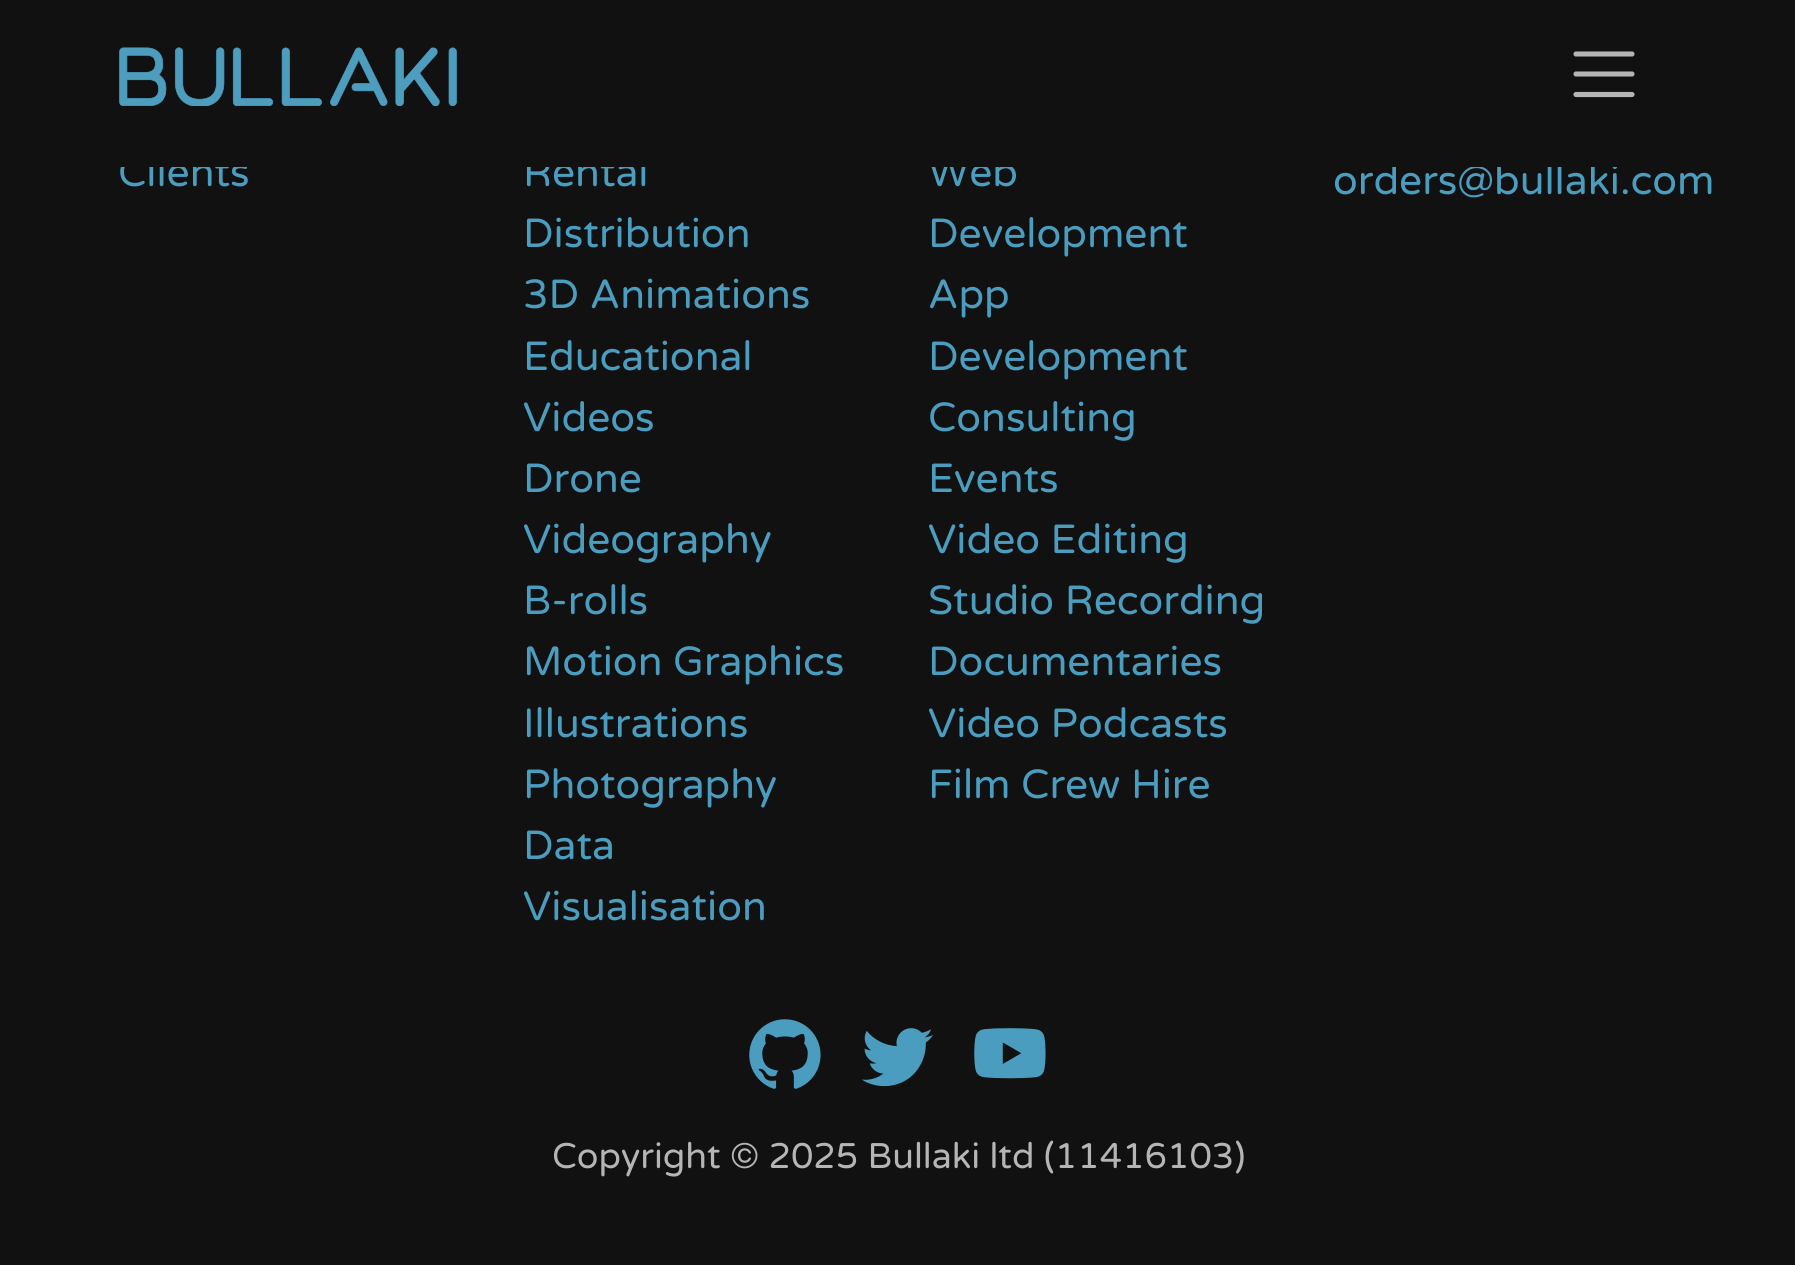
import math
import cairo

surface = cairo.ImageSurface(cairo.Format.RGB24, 1795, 1265)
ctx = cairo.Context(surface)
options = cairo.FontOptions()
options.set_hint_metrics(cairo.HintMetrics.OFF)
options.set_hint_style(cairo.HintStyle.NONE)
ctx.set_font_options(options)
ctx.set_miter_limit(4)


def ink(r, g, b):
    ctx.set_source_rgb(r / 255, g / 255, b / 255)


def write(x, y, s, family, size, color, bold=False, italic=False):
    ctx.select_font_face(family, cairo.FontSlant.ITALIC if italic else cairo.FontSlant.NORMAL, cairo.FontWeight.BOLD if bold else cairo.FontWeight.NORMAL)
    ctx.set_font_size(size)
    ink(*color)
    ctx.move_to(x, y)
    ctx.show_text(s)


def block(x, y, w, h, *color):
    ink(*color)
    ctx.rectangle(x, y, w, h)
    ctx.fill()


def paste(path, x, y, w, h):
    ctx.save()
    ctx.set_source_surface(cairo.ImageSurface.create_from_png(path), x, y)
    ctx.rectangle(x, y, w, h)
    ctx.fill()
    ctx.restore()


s1 = dict(family="Varela Round", size=40.75, color=(75, 157, 192))
s2 = dict(family="Varela Round", size=35.7, color=(181, 181, 181))

ink(17, 17, 17)
ctx.paint()
write(118, 186, "Clients", **s1)
write(523, 186, "Rental", **s1)
write(928, 186, "Web", **s1)
write(1333, 194, "orders@bullaki.com", **s1)
block(121, 156, 1497, 11, 17, 17, 17)
paste("pic1.png", 119, 47, 338, 59)
ctx.new_path()
ctx.move_to(1576, 54)
ctx.line_to(1632, 54)
ctx.move_to(1576, 74)
ctx.line_to(1632, 74)
ctx.move_to(1576, 94.5)
ctx.line_to(1632, 94.5)
ink(181, 181, 181)
ctx.set_line_width(5.1)
ctx.set_line_cap(cairo.LineCap.ROUND)
ctx.stroke()
write(523, 247, "Distribution", **s1)
write(523, 308, "3D Animations", **s1)
write(523, 370, "Educational", **s1)
write(523, 431, "Videos", **s1)
write(523, 492, "Drone", **s1)
write(523, 553, "Videography", **s1)
write(523, 614, "B-rolls", **s1)
write(523, 675, "Motion Graphics", **s1)
write(523, 737, "Illustrations", **s1)
write(523, 798, "Photography", **s1)
write(523, 859, "Data", **s1)
write(523, 920, "Visualisation", **s1)
write(928, 247, "Development", **s1)
write(928, 308, "App", **s1)
write(928, 370, "Development", **s1)
write(928, 431, "Consulting", **s1)
write(928, 492, "Events", **s1)
write(928, 553, "Video Editing", **s1)
write(928, 614, "Studio Recording", **s1)
write(928, 675, "Documentaries", **s1)
write(928, 737, "Video Podcasts", **s1)
write(928, 798, "Film Crew Hire", **s1)
paste("pic2.png", 749, 1019, 72, 70)
paste("pic3.png", 862, 1028, 71, 59)
paste("pic4.png", 974, 1028, 72, 51)
write(552, 1168, "Copyright © 2025 Bullaki ltd (11416103)", **s2)
surface.write_to_png("screenshot.png")
